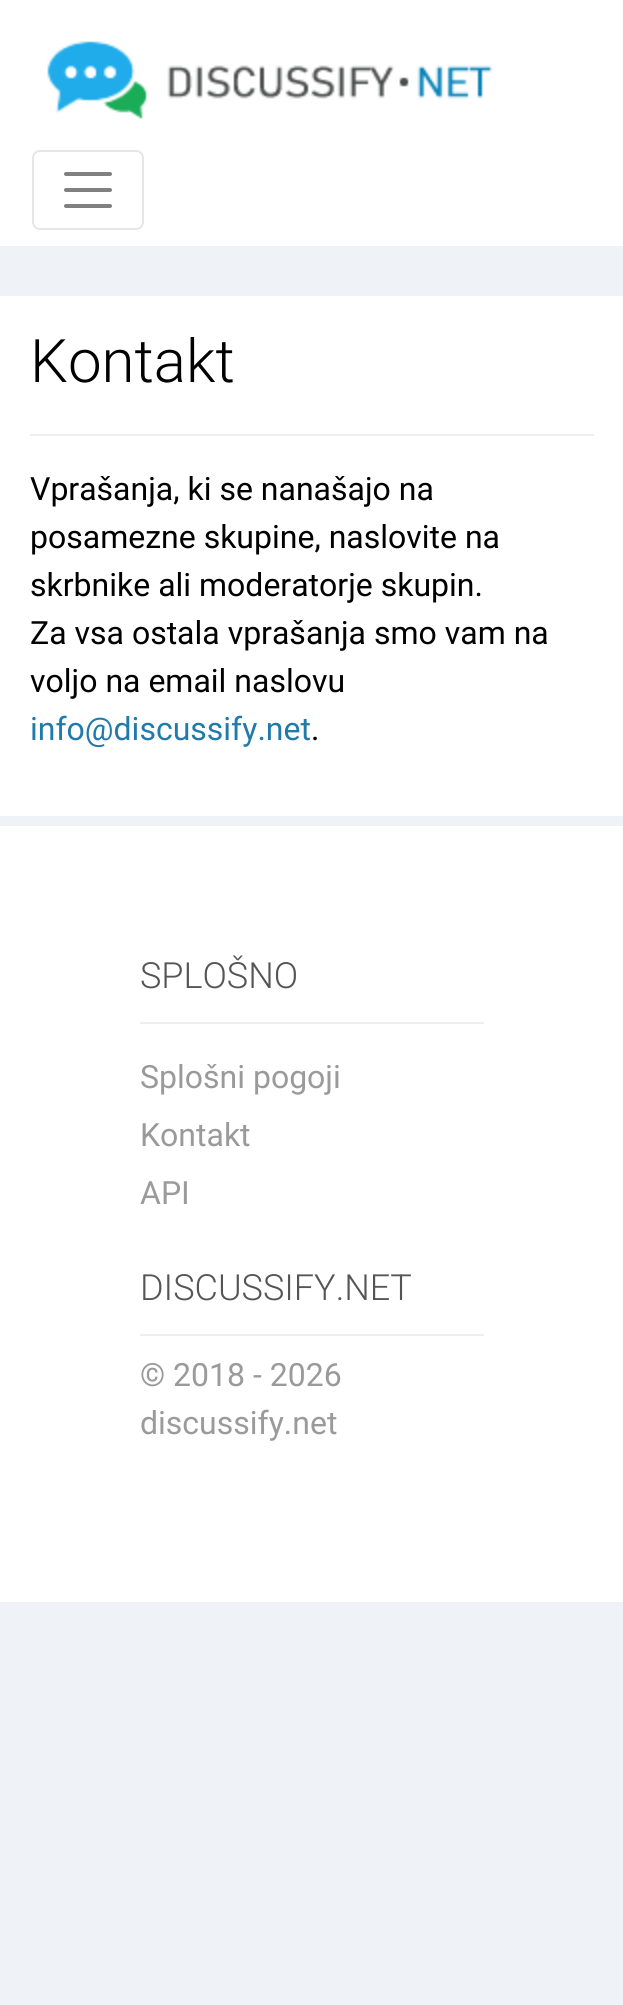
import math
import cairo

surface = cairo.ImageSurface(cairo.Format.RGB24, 623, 2005)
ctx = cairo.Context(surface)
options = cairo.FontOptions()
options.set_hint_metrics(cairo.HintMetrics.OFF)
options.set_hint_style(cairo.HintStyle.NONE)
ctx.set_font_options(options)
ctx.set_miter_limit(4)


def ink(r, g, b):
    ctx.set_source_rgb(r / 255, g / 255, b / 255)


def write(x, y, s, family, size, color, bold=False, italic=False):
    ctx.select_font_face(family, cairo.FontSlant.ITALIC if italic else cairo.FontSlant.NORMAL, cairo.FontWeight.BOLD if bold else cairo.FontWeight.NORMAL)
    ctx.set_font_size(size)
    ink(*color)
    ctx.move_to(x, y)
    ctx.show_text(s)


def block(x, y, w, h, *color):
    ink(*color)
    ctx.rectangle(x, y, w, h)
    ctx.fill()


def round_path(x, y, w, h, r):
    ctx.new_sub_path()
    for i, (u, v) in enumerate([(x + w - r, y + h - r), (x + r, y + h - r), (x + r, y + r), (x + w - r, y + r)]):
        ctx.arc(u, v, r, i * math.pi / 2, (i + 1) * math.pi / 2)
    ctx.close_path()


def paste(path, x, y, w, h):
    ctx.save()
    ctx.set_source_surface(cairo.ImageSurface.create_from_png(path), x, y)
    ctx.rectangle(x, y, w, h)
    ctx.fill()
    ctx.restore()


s1 = dict(family="Roboto Light", size=60, color=(0, 0, 0))
s2 = dict(family="Roboto", size=32, color=(0, 0, 0))
s3 = dict(family="Roboto", size=32, color=(32, 123, 172))
s4 = dict(family="Roboto Light", size=36, color=(85, 85, 85))
s5 = dict(family="Roboto", size=32, color=(154, 154, 154))

ink(239, 243, 248)
ctx.paint()
block(0, 0, 623, 246, 255, 255, 255)
paste("pic1.png", 47, 41, 446, 78)
round_path(33, 151, 110, 78, 7)
ink(230, 230, 230)
ctx.stroke()
ctx.new_path()
ctx.move_to(66, 174)
ctx.line_to(110, 174)
ctx.move_to(66, 190)
ctx.line_to(110, 190)
ctx.move_to(66, 206)
ctx.line_to(110, 206)
ink(128, 128, 128)
ctx.set_line_width(4)
ctx.set_line_cap(cairo.LineCap.ROUND)
ctx.stroke()
block(0, 296, 623, 520, 255, 255, 255)
block(30, 434, 564, 2, 238, 238, 238)
write(30, 382, "Kontakt", **s1)
write(30, 500, "Vprašanja, ki se nanašajo na", **s2)
write(30, 548, "posamezne skupine, naslovite na", **s2)
write(30, 596, "skrbnike ali moderatorje skupin.", **s2)
write(30, 644, "Za vsa ostala vprašanja smo vam na", **s2)
write(30, 692, "voljo na email naslovu", **s2)
write(30, 740, "info@discussify.net", **s3)
write(311, 740, ".", **s2)
block(0, 826, 623, 776, 255, 255, 255)
block(140, 1022, 344, 2, 238, 238, 238)
write(140, 988, "SPLOŠNO", **s4)
write(140, 1088, "Splošni pogoji", **s5)
write(140, 1146, "Kontakt", **s5)
write(140, 1204, "API", **s5)
block(140, 1334, 344, 2, 238, 238, 238)
write(140, 1300, "DISCUSSIFY.NET", **s4)
write(140, 1386, "© 2018 - 2026", **s5)
write(140, 1434, "discussify.net", **s5)
surface.write_to_png("screenshot.png")
